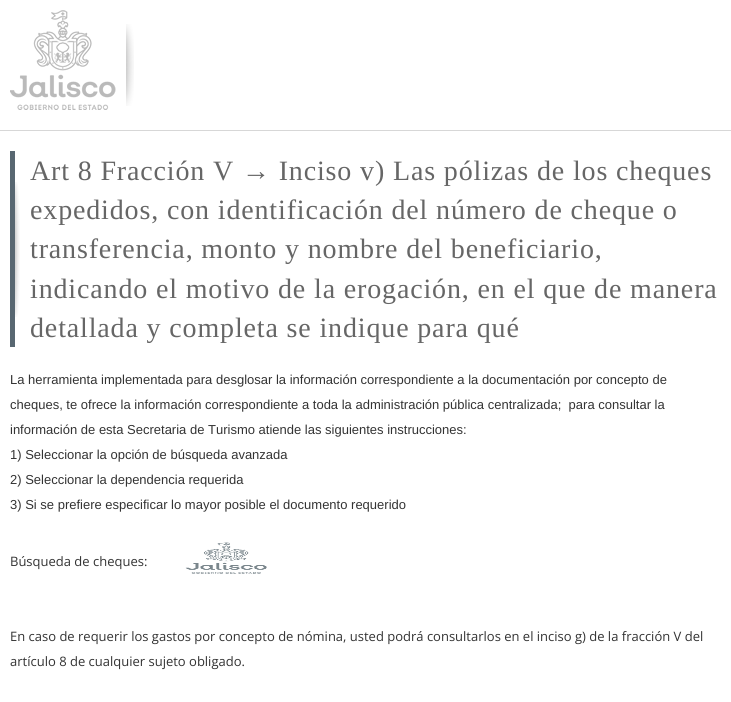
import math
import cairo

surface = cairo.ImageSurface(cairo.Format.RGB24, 731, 702)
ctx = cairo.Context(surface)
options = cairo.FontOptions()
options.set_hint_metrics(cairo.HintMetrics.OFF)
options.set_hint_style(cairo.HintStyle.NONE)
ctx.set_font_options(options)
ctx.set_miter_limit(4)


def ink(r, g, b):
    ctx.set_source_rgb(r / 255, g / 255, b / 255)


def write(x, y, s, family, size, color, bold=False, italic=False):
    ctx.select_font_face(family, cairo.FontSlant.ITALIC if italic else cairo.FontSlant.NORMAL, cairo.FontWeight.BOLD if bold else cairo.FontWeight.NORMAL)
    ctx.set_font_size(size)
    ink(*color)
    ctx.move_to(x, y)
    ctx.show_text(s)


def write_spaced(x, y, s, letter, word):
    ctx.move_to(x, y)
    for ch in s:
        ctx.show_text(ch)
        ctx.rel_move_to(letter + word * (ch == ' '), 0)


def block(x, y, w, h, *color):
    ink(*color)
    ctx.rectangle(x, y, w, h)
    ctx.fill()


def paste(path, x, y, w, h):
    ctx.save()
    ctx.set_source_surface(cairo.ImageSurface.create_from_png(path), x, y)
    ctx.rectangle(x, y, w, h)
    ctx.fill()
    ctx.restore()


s1 = dict(family="Liberation Sans", size=13, color=(51, 51, 51))
s2 = dict(family="Open Sans", size=13, color=(51, 51, 51))

ink(255, 255, 255)
ctx.paint()
paste("pic1.png", 126, 24, 8, 82)
paste("pic2.png", 10, 10, 106, 100)
block(0, 130, 731, 1, 215, 215, 215)
paste("pic3.png", 15, 182, 5, 135)
block(10, 151, 5, 196, 88, 103, 113)
ctx.select_font_face("Liberation Serif")
ctx.set_font_size(28)
ink(102, 102, 102)
write_spaced(30, 180, "Art 8 Fracción V → Inciso v) Las pólizas de los cheques", 0.85, 0)
write_spaced(30, 219, "expedidos, con identificación del número de cheque o", 0.85, 0)
write_spaced(30, 258, "transferencia, monto y nombre del beneficiario,", 0.85, 0)
write_spaced(30, 298, "indicando el motivo de la erogación, en el que de manera", 0.85, 0)
write_spaced(30, 337, "detallada y completa se indique para qué", 0.85, 0)
write(10, 384, "La herramienta implementada para desglosar la información correspondiente a la documentación por concepto de", **s1)
write(10, 409, "cheques, te ofrece la información correspondiente a toda la administración pública centralizada;  para consultar la", **s1)
write(10, 434, "información de esta Secretaria de Turismo atiende las siguientes instrucciones:", **s1)
write(10, 459, "1) Seleccionar la opción de búsqueda avanzada", **s1)
write(10, 484, "2) Seleccionar la dependencia requerida", **s1)
write(10, 509, "3) Si se prefiere especificar lo mayor posible el documento requerido", **s1)
write(10, 566, "Búsqueda de cheques:", **s2)
paste("pic4.png", 185, 542, 82, 32)
write(10, 641, "En caso de requerir los gastos por concepto de nómina, usted podrá consultarlos en el inciso g) de la fracción V del", **s2)
write(10, 666, "artículo 8 de cualquier sujeto obligado.", **s2)
surface.write_to_png("screenshot.png")
